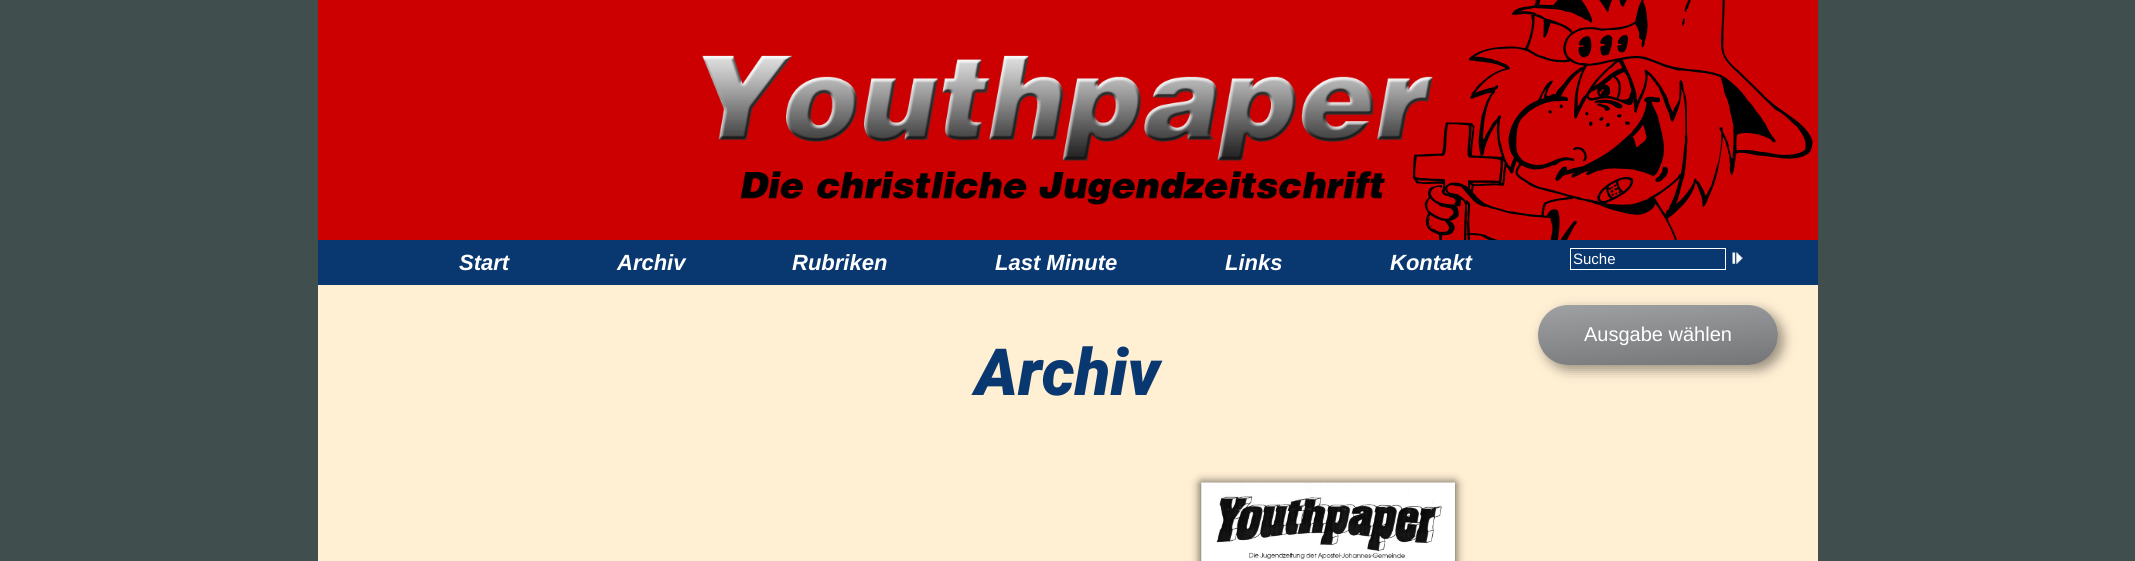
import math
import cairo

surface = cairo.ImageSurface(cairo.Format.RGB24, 2135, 561)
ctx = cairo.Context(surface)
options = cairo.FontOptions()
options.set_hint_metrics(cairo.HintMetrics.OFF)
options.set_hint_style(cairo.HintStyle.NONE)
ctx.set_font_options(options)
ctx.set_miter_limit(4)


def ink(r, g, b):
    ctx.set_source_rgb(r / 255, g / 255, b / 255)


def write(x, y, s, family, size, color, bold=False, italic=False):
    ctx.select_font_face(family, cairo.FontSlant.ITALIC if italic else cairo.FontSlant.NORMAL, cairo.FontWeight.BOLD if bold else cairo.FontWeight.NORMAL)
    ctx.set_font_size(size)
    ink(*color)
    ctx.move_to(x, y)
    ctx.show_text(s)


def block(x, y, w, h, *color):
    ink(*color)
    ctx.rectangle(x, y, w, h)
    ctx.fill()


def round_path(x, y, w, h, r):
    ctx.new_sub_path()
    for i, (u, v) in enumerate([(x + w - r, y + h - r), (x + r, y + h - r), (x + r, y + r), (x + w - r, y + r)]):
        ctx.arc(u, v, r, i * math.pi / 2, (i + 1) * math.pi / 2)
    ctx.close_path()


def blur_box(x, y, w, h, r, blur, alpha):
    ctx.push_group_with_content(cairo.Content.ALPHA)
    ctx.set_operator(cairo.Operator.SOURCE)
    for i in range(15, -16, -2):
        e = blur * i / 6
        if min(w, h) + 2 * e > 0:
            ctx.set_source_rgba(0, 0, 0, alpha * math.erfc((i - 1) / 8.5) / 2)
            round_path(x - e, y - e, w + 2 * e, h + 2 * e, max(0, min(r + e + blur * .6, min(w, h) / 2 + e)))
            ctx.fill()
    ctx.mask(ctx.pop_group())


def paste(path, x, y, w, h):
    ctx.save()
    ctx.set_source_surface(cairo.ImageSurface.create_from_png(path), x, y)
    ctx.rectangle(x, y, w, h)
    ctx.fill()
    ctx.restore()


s1 = dict(family="Liberation Sans", size=22, color=(255, 255, 255), bold=True, italic=True)
s2 = dict(family="Liberation Sans", size=15, color=(255, 255, 255))
s3 = dict(family="Liberation Sans", size=20, color=(255, 255, 255))
s4 = dict(family="Roboto Black", size=65, color=(9, 56, 113), italic=True)

ink(64, 78, 77)
ctx.paint()
block(318, 0, 1500, 240, 204, 0, 0)
paste("pic1.png", 1413, 0, 400, 240)
paste("pic2.png", 702, 55, 731, 150)
block(318, 240, 1500, 45, 9, 56, 113)
write(459, 270, "Start", **s1)
write(617, 270, "Archiv", **s1)
write(792, 270, "Rubriken", **s1)
write(995, 270, "Last Minute", **s1)
write(1225, 270, "Links", **s1)
write(1390, 270, "Kontakt", **s1)
ctx.rectangle(1570.5, 248.5, 155, 21)
ctx.set_line_width(1)
ctx.stroke()
write(1573, 264, "Suche", **s2)
paste("pic3.png", 1732, 252, 11, 12)
block(318, 285, 1500, 276, 255, 239, 211)
ctx.save()
ctx.set_fill_rule(cairo.FillRule.EVEN_ODD)
ctx.new_path()
ctx.move_to(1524, 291)
ctx.line_to(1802, 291)
ctx.line_to(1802, 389)
ctx.line_to(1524, 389)
ctx.close_path()
ctx.move_to(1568, 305)
ctx.line_to(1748, 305)
ctx.curve_to(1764.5, 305, 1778, 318.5, 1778, 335)
ctx.curve_to(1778, 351.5, 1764.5, 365, 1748, 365)
ctx.line_to(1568, 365)
ctx.curve_to(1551.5, 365, 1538, 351.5, 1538, 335)
ctx.curve_to(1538, 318.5, 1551.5, 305, 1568, 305)
ctx.close_path()
ctx.clip()
ink(0, 0, 0)
blur_box(1543, 310, 240, 60, 30, 6, 0.4)
ctx.restore()
gradient = cairo.LinearGradient(1654, 295, 1661, 375)
gradient.add_color_stop_rgba(0, 0.314, 0.376, 0.486, 0.55)
gradient.add_color_stop_rgba(1, 0, 0.063, 0.173, 0.55)
ctx.set_source(gradient)
round_path(1538, 305, 240, 60, 30)
ctx.fill()
write(1584, 341, "Ausgabe wählen", **s3)
write(975, 395, "Archiv", **s4)
ink(0, 0, 0)
blur_box(1201, 483, 254, 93, 0, 5, 0.75)
paste("pic4.png", 1201, 482, 254, 79)
surface.write_to_png("screenshot.png")
